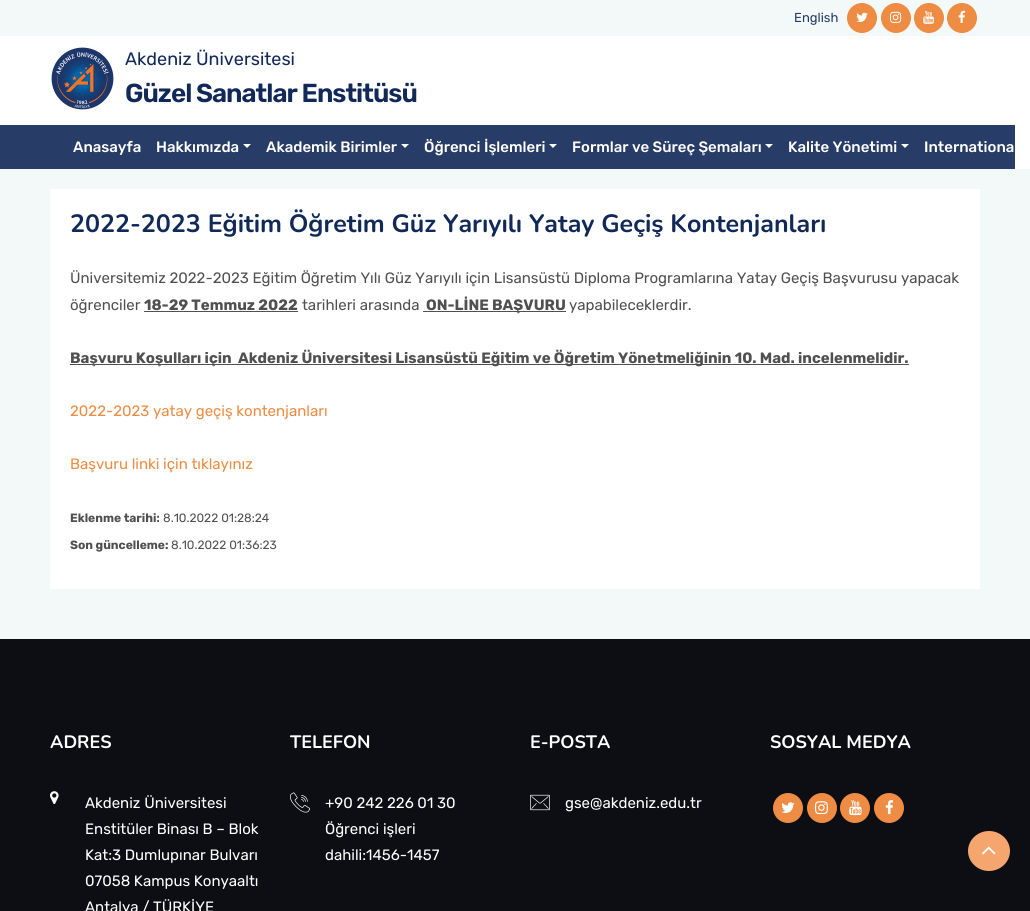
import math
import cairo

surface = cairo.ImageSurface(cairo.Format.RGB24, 1030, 911)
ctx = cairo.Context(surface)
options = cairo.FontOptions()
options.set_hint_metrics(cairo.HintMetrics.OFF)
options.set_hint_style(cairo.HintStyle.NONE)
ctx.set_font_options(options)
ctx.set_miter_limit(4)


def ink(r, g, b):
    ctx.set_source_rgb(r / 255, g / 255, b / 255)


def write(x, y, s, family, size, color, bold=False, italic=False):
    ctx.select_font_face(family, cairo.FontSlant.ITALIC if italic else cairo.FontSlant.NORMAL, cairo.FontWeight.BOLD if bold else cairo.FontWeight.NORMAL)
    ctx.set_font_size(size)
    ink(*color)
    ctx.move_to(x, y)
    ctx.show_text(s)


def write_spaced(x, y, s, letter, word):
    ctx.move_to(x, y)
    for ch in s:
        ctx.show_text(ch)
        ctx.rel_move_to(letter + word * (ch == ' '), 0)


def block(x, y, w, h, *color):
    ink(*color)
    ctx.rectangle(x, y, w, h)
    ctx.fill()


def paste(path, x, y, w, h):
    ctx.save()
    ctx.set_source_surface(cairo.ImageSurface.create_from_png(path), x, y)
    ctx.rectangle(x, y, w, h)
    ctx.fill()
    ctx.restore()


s1 = dict(family="Rubik", size=13, color=(39, 60, 102))
s2 = dict(family="Rubik", size=18, color=(17, 41, 88))
s3 = dict(family="Rubik Medium", size=15, color=(255, 255, 255))
s4 = dict(family="Nunito", size=25, color=(17, 41, 88), bold=True)
s5 = dict(family="Rubik", size=15, color=(80, 80, 80))
s6 = dict(family="Rubik", size=15, color=(80, 80, 80), bold=True)
s7 = dict(family="Rubik", size=15, color=(237, 140, 66))
s8 = dict(family="Rubik", size=12, color=(80, 80, 80), bold=True)
s9 = dict(family="Rubik", size=12, color=(80, 80, 80))
s10 = dict(family="Nunito", size=18, color=(255, 255, 255), bold=True)
s11 = dict(family="Rubik", size=15, color=(255, 255, 255))

ink(255, 255, 255)
ctx.paint()
block(0, 0, 1030, 36, 243, 248, 249)
write(794, 22, "English", **s1)
ink(237, 140, 66)
ctx.new_path()
ctx.arc(862, 18, 15, 0, 2 * math.pi)
ctx.fill()
paste("pic1.png", 856, 12, 12, 10)
ctx.arc(896, 18, 15, 0, 2 * math.pi)
ctx.fill()
paste("pic2.png", 890, 11, 12, 12)
ctx.arc(929, 18, 15, 0, 2 * math.pi)
ctx.fill()
paste("pic3.png", 923, 10, 11, 14)
ctx.arc(962, 18, 15, 0, 2 * math.pi)
ctx.fill()
paste("pic4.png", 958, 10, 7, 13)
paste("pic5.png", 51, 47, 63, 63)
write(125, 65, "Akdeniz Üniversitesi", **s2)
ctx.select_font_face("Rubik SemiBold")
ctx.set_font_size(26)
write_spaced(125, 102, "Güzel Sanatlar Enstitüsü", -1, 0)
block(0, 125, 1015, 44, 39, 60, 102)
write(73, 152, "Anasayfa", **s3)
write(156, 152, "Hakkımızda", **s3)
ctx.new_path()
ctx.move_to(243, 144)
ctx.line_to(251, 144)
ctx.line_to(247, 148)
ctx.close_path()
ctx.fill()
write(266, 152, "Akademik Birimler", **s3)
ctx.new_path()
ctx.move_to(401, 144)
ctx.line_to(409, 144)
ctx.line_to(405, 148)
ctx.close_path()
ctx.fill()
write(424, 152, "Öğrenci İşlemleri", **s3)
ctx.new_path()
ctx.move_to(549, 144)
ctx.line_to(557, 144)
ctx.line_to(553, 148)
ctx.close_path()
ctx.fill()
write(572, 152, "Formlar ve Süreç Şemaları", **s3)
ctx.new_path()
ctx.move_to(765, 144)
ctx.line_to(773, 144)
ctx.line_to(769, 148)
ctx.close_path()
ctx.fill()
write(788, 152, "Kalite Yönetimi", **s3)
ctx.new_path()
ctx.move_to(901, 144)
ctx.line_to(909, 144)
ctx.line_to(905, 148)
ctx.close_path()
ctx.fill()
write(924, 152, "Internationa", **s3)
block(0, 169, 1030, 470, 243, 248, 249)
block(50, 189, 930, 400, 255, 255, 255)
write(70, 232, "2022-2023 Eğitim Öğretim Güz Yarıyılı Yatay Geçiş Kontenjanları", **s4)
write(70, 283, "Üniversitemiz 2022-2023 Eğitim Öğretim Yılı Güz Yarıyılı için Lisansüstü Diploma Programlarına Yatay Geçiş Başvurusu yapacak", **s5)
write(70, 310, "öğrenciler", **s5)
write(144, 310, "18-29 Temmuz 2022", **s6)
block(144, 311, 154, 1, 80, 80, 80)
write(302, 310, "tarihleri arasında", **s5)
block(423, 311, 143, 1, 80, 80, 80)
write(426, 310, "ON-LİNE BAŞVURU", **s6)
write(569, 310, "yapabileceklerdir.", **s5)
block(70, 364, 839, 1, 80, 80, 80)
write(70, 363, "Başvuru Koşulları için  Akdeniz Üniversitesi Lisansüstü Eğitim ve Öğretim Yönetmeliğinin 10. Mad. incelenmelidir.", **s6)
write(70, 416, "2022-2023 yatay geçiş kontenjanları", **s7)
write(70, 469, "Başvuru linki için tıklayınız", **s7)
write(70, 522, "Eklenme tarihi:", **s8)
write(163, 522, "8.10.2022 01:28:24", **s9)
write(70, 549, "Son güncelleme:", **s8)
write(171, 549, "8.10.2022 01:36:23", **s9)
block(0, 639, 1030, 272, 12, 14, 19)
write(50, 748, "ADRES", **s10)
paste("pic6.png", 50, 791, 9, 13)
write(85, 808, "Akdeniz Üniversitesi", **s11)
write(85, 834, "Enstitüler Binası B – Blok", **s11)
write(85, 860, "Kat:3 Dumlupınar Bulvarı", **s11)
write(85, 886, "07058 Kampus Konyaaltı", **s11)
write(85, 912, "Antalya / TÜRKİYE", **s11)
write(290, 748, "TELEFON", **s10)
paste("pic7.png", 290, 792, 20, 21)
write(325, 808, "+90 242 226 01 30", **s11)
write(325, 834, "Öğrenci işleri", **s11)
write(325, 860, "dahili:1456-1457", **s11)
write(530, 748, "E-POSTA", **s10)
paste("pic8.png", 530, 794, 20, 17)
write(565, 808, "gse@akdeniz.edu.tr", **s11)
write(770, 748, "SOSYAL MEDYA", **s10)
ink(237, 140, 66)
ctx.new_path()
ctx.arc(788, 808, 15, 0, 2 * math.pi)
ctx.fill()
paste("pic9.png", 781, 802, 14, 11)
ctx.arc(822, 808, 15, 0, 2 * math.pi)
ctx.fill()
paste("pic10.png", 815, 801, 13, 14)
ctx.arc(855, 808, 15, 0, 2 * math.pi)
ctx.fill()
paste("pic11.png", 849, 800, 13, 16)
ctx.arc(889, 808, 15, 0, 2 * math.pi)
ctx.fill()
paste("pic12.png", 885, 800, 9, 15)
ink(244, 166, 110)
ctx.new_path()
ctx.move_to(989, 831)
ctx.curve_to(1000.5, 831, 1010, 840, 1010, 851)
ctx.curve_to(1010, 862, 1000.5, 871, 989, 871)
ctx.curve_to(977.5, 871, 968, 862, 968, 851)
ctx.curve_to(968, 840, 977.5, 831, 989, 831)
ctx.close_path()
ctx.fill()
paste("pic13.png", 982, 846, 14, 9)
surface.write_to_png("screenshot.png")
